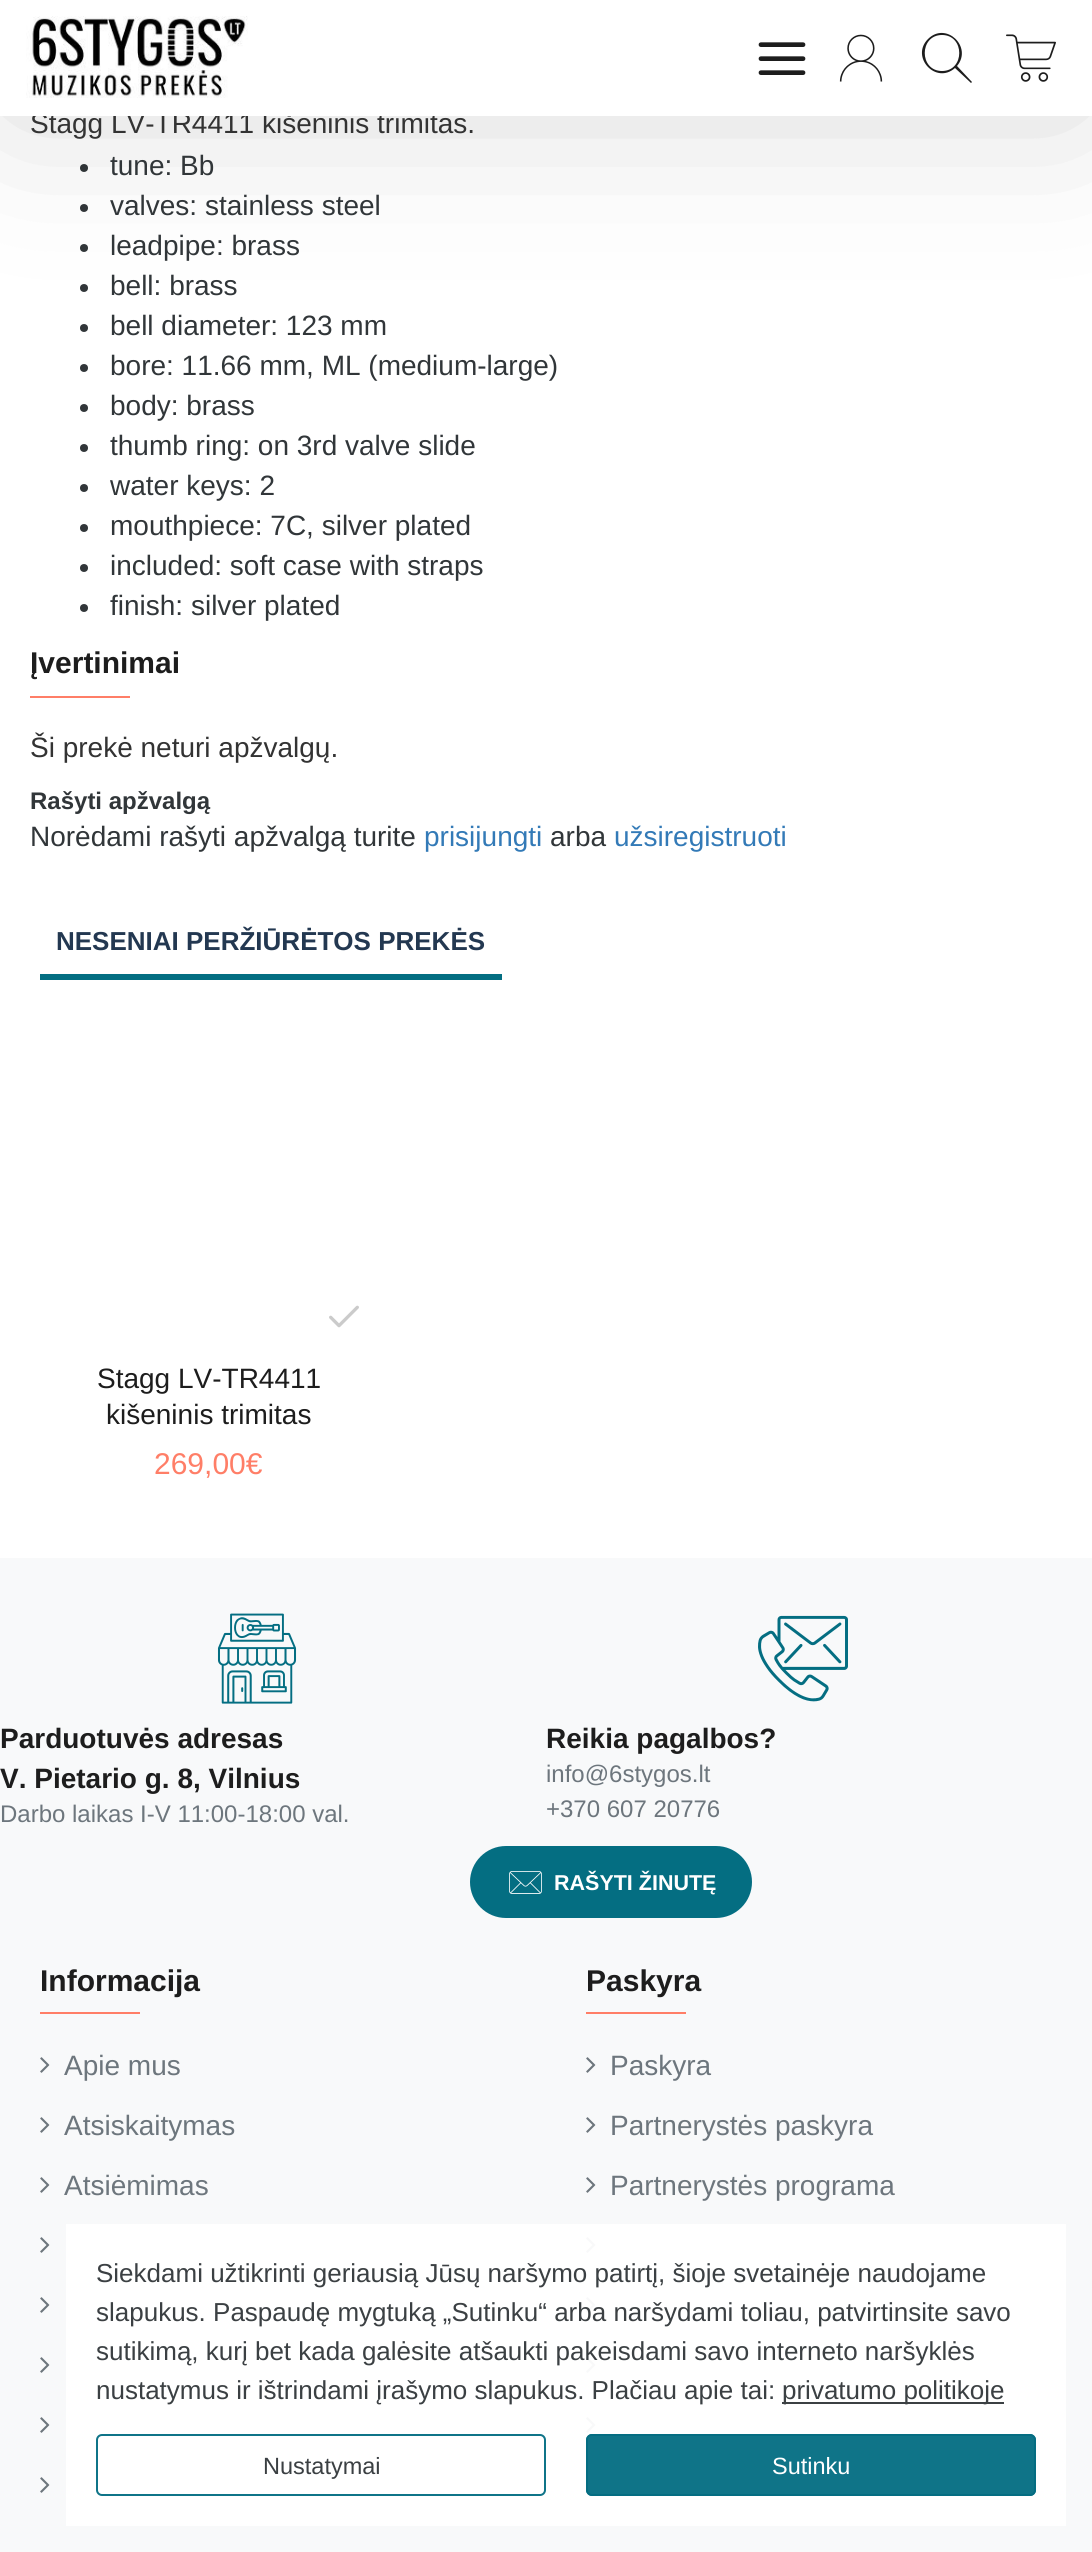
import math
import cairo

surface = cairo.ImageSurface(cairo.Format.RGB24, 1092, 2552)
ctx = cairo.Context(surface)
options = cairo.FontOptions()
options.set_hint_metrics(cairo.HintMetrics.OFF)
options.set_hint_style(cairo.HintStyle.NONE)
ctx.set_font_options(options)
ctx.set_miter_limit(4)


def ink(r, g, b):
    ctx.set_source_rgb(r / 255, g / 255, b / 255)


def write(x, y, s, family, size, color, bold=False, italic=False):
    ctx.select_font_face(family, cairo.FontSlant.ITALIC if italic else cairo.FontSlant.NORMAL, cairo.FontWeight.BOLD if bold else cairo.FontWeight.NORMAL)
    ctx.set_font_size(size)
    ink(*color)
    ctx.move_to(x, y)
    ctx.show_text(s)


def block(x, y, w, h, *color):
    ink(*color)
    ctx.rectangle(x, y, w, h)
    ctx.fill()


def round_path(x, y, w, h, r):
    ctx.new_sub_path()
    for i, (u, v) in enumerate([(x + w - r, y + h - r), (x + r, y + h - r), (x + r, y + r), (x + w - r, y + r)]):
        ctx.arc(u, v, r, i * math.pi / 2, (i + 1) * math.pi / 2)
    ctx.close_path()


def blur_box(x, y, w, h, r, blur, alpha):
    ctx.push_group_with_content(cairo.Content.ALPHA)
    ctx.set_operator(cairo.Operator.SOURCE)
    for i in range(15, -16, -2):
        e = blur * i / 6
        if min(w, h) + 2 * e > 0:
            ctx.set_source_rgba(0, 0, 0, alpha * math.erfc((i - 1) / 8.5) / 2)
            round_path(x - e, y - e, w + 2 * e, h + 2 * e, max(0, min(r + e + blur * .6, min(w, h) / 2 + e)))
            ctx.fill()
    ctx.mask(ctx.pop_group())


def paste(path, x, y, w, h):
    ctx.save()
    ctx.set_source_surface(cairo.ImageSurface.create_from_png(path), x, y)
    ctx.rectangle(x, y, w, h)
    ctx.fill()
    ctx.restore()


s1 = dict(family="Liberation Sans", size=28, color=(51, 51, 51))
s2 = dict(family="Liberation Sans", size=28, color=(49, 54, 57))
s3 = dict(family="Liberation Sans", size=30, color=(29, 29, 29), bold=True)
s4 = dict(family="Liberation Sans", size=24, color=(49, 54, 57), bold=True)
s5 = dict(family="Liberation Sans", size=28, color=(51, 122, 183))
s6 = dict(family="Liberation Sans", size=26, color=(35, 56, 81), bold=True)
s7 = dict(family="Liberation Sans", size=28, color=(29, 29, 29))
s8 = dict(family="Liberation Sans", size=30, color=(255, 126, 103))
s9 = dict(family="Liberation Sans", size=28, color=(29, 29, 29), bold=True)
s10 = dict(family="Liberation Sans", size=24, color=(109, 118, 125))
s11 = dict(family="Liberation Sans", size=21.5, color=(255, 255, 255), bold=True)
s12 = dict(family="Liberation Sans", size=28, color=(109, 118, 125))
s13 = dict(family="Liberation Sans", size=26, color=(59, 64, 67))
s14 = dict(family="Liberation Sans", size=23.5, color=(59, 64, 67))
s15 = dict(family="Liberation Sans", size=23.5, color=(255, 255, 255))

ink(255, 255, 255)
ctx.paint()
ink(49, 54, 57)
ctx.arc(84, 168, 4, 0, 2 * math.pi)
ctx.fill()
ctx.arc(84, 208, 4, 0, 2 * math.pi)
ctx.fill()
ctx.arc(84, 248, 4, 0, 2 * math.pi)
ctx.fill()
ctx.arc(84, 288, 4, 0, 2 * math.pi)
ctx.fill()
ctx.arc(84, 328, 4, 0, 2 * math.pi)
ctx.fill()
ink(0, 0, 0)
blur_box(20, 20, 1052, 76, 0, 85, 0.2)
write(30, 133, "Stagg LV-TR4411 kišeninis trimitas.", **s1)
block(0, 0, 1092, 116, 255, 255, 255)
paste("pic1.png", 26, 16, 222, 82)
paste("pic2.png", 758, 42, 48, 33)
paste("pic3.png", 839, 34, 44, 48)
ink(29, 29, 29)
ctx.new_path()
ctx.move_to(955, 68)
ctx.line_to(971, 83)
ctx.line_to(972, 82)
ctx.line_to(957, 66)
ctx.curve_to(973, 47, 946, 21, 928, 39)
ctx.curve_to(910, 57, 936, 85, 955, 68)
ctx.close_path()
ctx.move_to(942, 35)
ctx.curve_to(965, 35, 965, 71, 942, 71)
ctx.curve_to(919, 71, 919, 35, 942, 35)
ctx.close_path()
ctx.fill()
paste("pic4.png", 1006, 34, 50, 48)
write(110, 175, "tune: Bb", **s2)
write(110, 215, "valves: stainless steel", **s2)
write(110, 255, "leadpipe: brass", **s2)
write(110, 295, "bell: brass", **s2)
write(110, 335, "bell diameter: 123 mm", **s2)
ctx.new_path()
ctx.arc(84, 368, 4, 0, 2 * math.pi)
ctx.fill()
write(110, 375, "bore: 11.66 mm, ML (medium-large)", **s2)
ctx.new_path()
ctx.arc(84, 408, 4, 0, 2 * math.pi)
ctx.fill()
write(110, 415, "body: brass", **s2)
ctx.new_path()
ctx.arc(84, 448, 4, 0, 2 * math.pi)
ctx.fill()
write(110, 455, "thumb ring: on 3rd valve slide", **s2)
ctx.new_path()
ctx.arc(84, 488, 4, 0, 2 * math.pi)
ctx.fill()
write(110, 495, "water keys: 2", **s2)
ctx.new_path()
ctx.arc(84, 528, 4, 0, 2 * math.pi)
ctx.fill()
write(110, 535, "mouthpiece: 7C, silver plated", **s2)
ctx.new_path()
ctx.arc(84, 568, 4, 0, 2 * math.pi)
ctx.fill()
write(110, 575, "included: soft case with straps", **s2)
ctx.new_path()
ctx.arc(84, 608, 4, 0, 2 * math.pi)
ctx.fill()
write(110, 615, "finish: silver plated", **s2)
write(30, 673, "Įvertinimai", **s3)
block(30, 696, 100, 2, 255, 126, 103)
write(30, 757, "Ši prekė neturi apžvalgų.", **s1)
write(30, 809, "Rašyti apžvalgą", **s4)
write(30, 846, "Norėdami rašyti apžvalgą turite", **s2)
write(424, 846, "prisijungti", **s5)
write(550, 846, "arba", **s2)
write(614, 846, "užsiregistruoti", **s5)
block(40, 974, 462, 6, 4, 110, 130)
write(56, 950, "NESENIAI PERŽIŪRĖTOS PREKĖS", **s6)
paste("pic5.png", 329, 1305, 30, 23)
write(97, 1388, "Stagg LV-TR4411", **s7)
write(106, 1424, "kišeninis trimitas", **s7)
write(154, 1474, "269,00€", **s8)
block(0, 1558, 1092, 994, 248, 249, 250)
paste("pic6.png", 217, 1613, 80, 91)
write(0, 1748, "Parduotuvės adresas", **s9)
write(0, 1788, "V. Pietario g. 8, Vilnius", **s9)
write(0, 1822, "Darbo laikas I-V 11:00-18:00 val.", **s10)
paste("pic7.png", 758, 1615, 90, 87)
write(546, 1748, "Reikia pagalbos?", **s9)
write(546, 1782, "info@6stygos.lt", **s10)
write(546, 1817, "+370 607 20776", **s10)
ink(4, 110, 130)
round_path(470, 1846, 282, 72, 36)
ctx.fill()
paste("pic8.png", 509, 1871, 33, 23)
write(554, 1890, "RAŠYTI ŽINUTĘ", **s11)
write(40, 1991, "Informacija", **s3)
block(40, 2012, 100, 2, 255, 126, 103)
paste("pic9.png", 40, 2057, 10, 16)
write(64, 2075, "Apie mus", **s12)
paste("pic9.png", 40, 2117, 10, 16)
write(64, 2135, "Atsiskaitymas", **s12)
paste("pic9.png", 40, 2177, 10, 16)
write(64, 2195, "Atsiėmimas", **s12)
paste("pic9.png", 40, 2237, 10, 16)
paste("pic9.png", 40, 2297, 10, 16)
paste("pic9.png", 40, 2357, 10, 16)
paste("pic9.png", 40, 2417, 10, 16)
paste("pic9.png", 40, 2477, 10, 16)
write(586, 1991, "Paskyra", **s3)
block(586, 2012, 100, 2, 255, 126, 103)
paste("pic9.png", 586, 2057, 10, 16)
write(610, 2075, "Paskyra", **s12)
paste("pic9.png", 586, 2117, 10, 16)
write(610, 2135, "Partnerystės paskyra", **s12)
paste("pic9.png", 586, 2177, 10, 16)
write(610, 2195, "Partnerystės programa", **s12)
paste("pic9.png", 586, 2237, 10, 16)
paste("pic9.png", 586, 2297, 10, 16)
paste("pic9.png", 586, 2357, 10, 16)
paste("pic9.png", 586, 2417, 10, 16)
ctx.set_source_rgba(1, 1, 1, 0.95)
ctx.rectangle(66, 2224, 1000, 302)
ctx.fill()
write(96, 2282, "Siekdami užtikrinti geriausią Jūsų naršymo patirtį, šioje svetainėje naudojame", **s13)
write(96, 2321, "slapukus. Paspaudę mygtuką „Sutinku“ arba naršydami toliau, patvirtinsite savo", **s13)
write(96, 2360, "sutikimą, kurį bet kada galėsite atšaukti pakeisdami savo interneto naršyklės", **s13)
write(96, 2399, "nustatymus ir ištrindami įrašymo slapukus. Plačiau apie tai:", **s13)
block(782, 2402, 222, 2, 59, 64, 67)
write(782, 2399, "privatumo politikoje", **s13)
round_path(97, 2435, 448, 60, 5)
ctx.set_source_rgba(0.016, 0.431, 0.51, 0.95)
ctx.stroke()
write(263, 2474, "Nustatymai", **s14)
ctx.set_source_rgba(0.016, 0.431, 0.51, 0.95)
round_path(586, 2434, 450, 62, 6)
ctx.fill()
round_path(587, 2435, 448, 60, 5)
ctx.stroke()
write(772, 2474, "Sutinku", **s15)
surface.write_to_png("screenshot.png")
